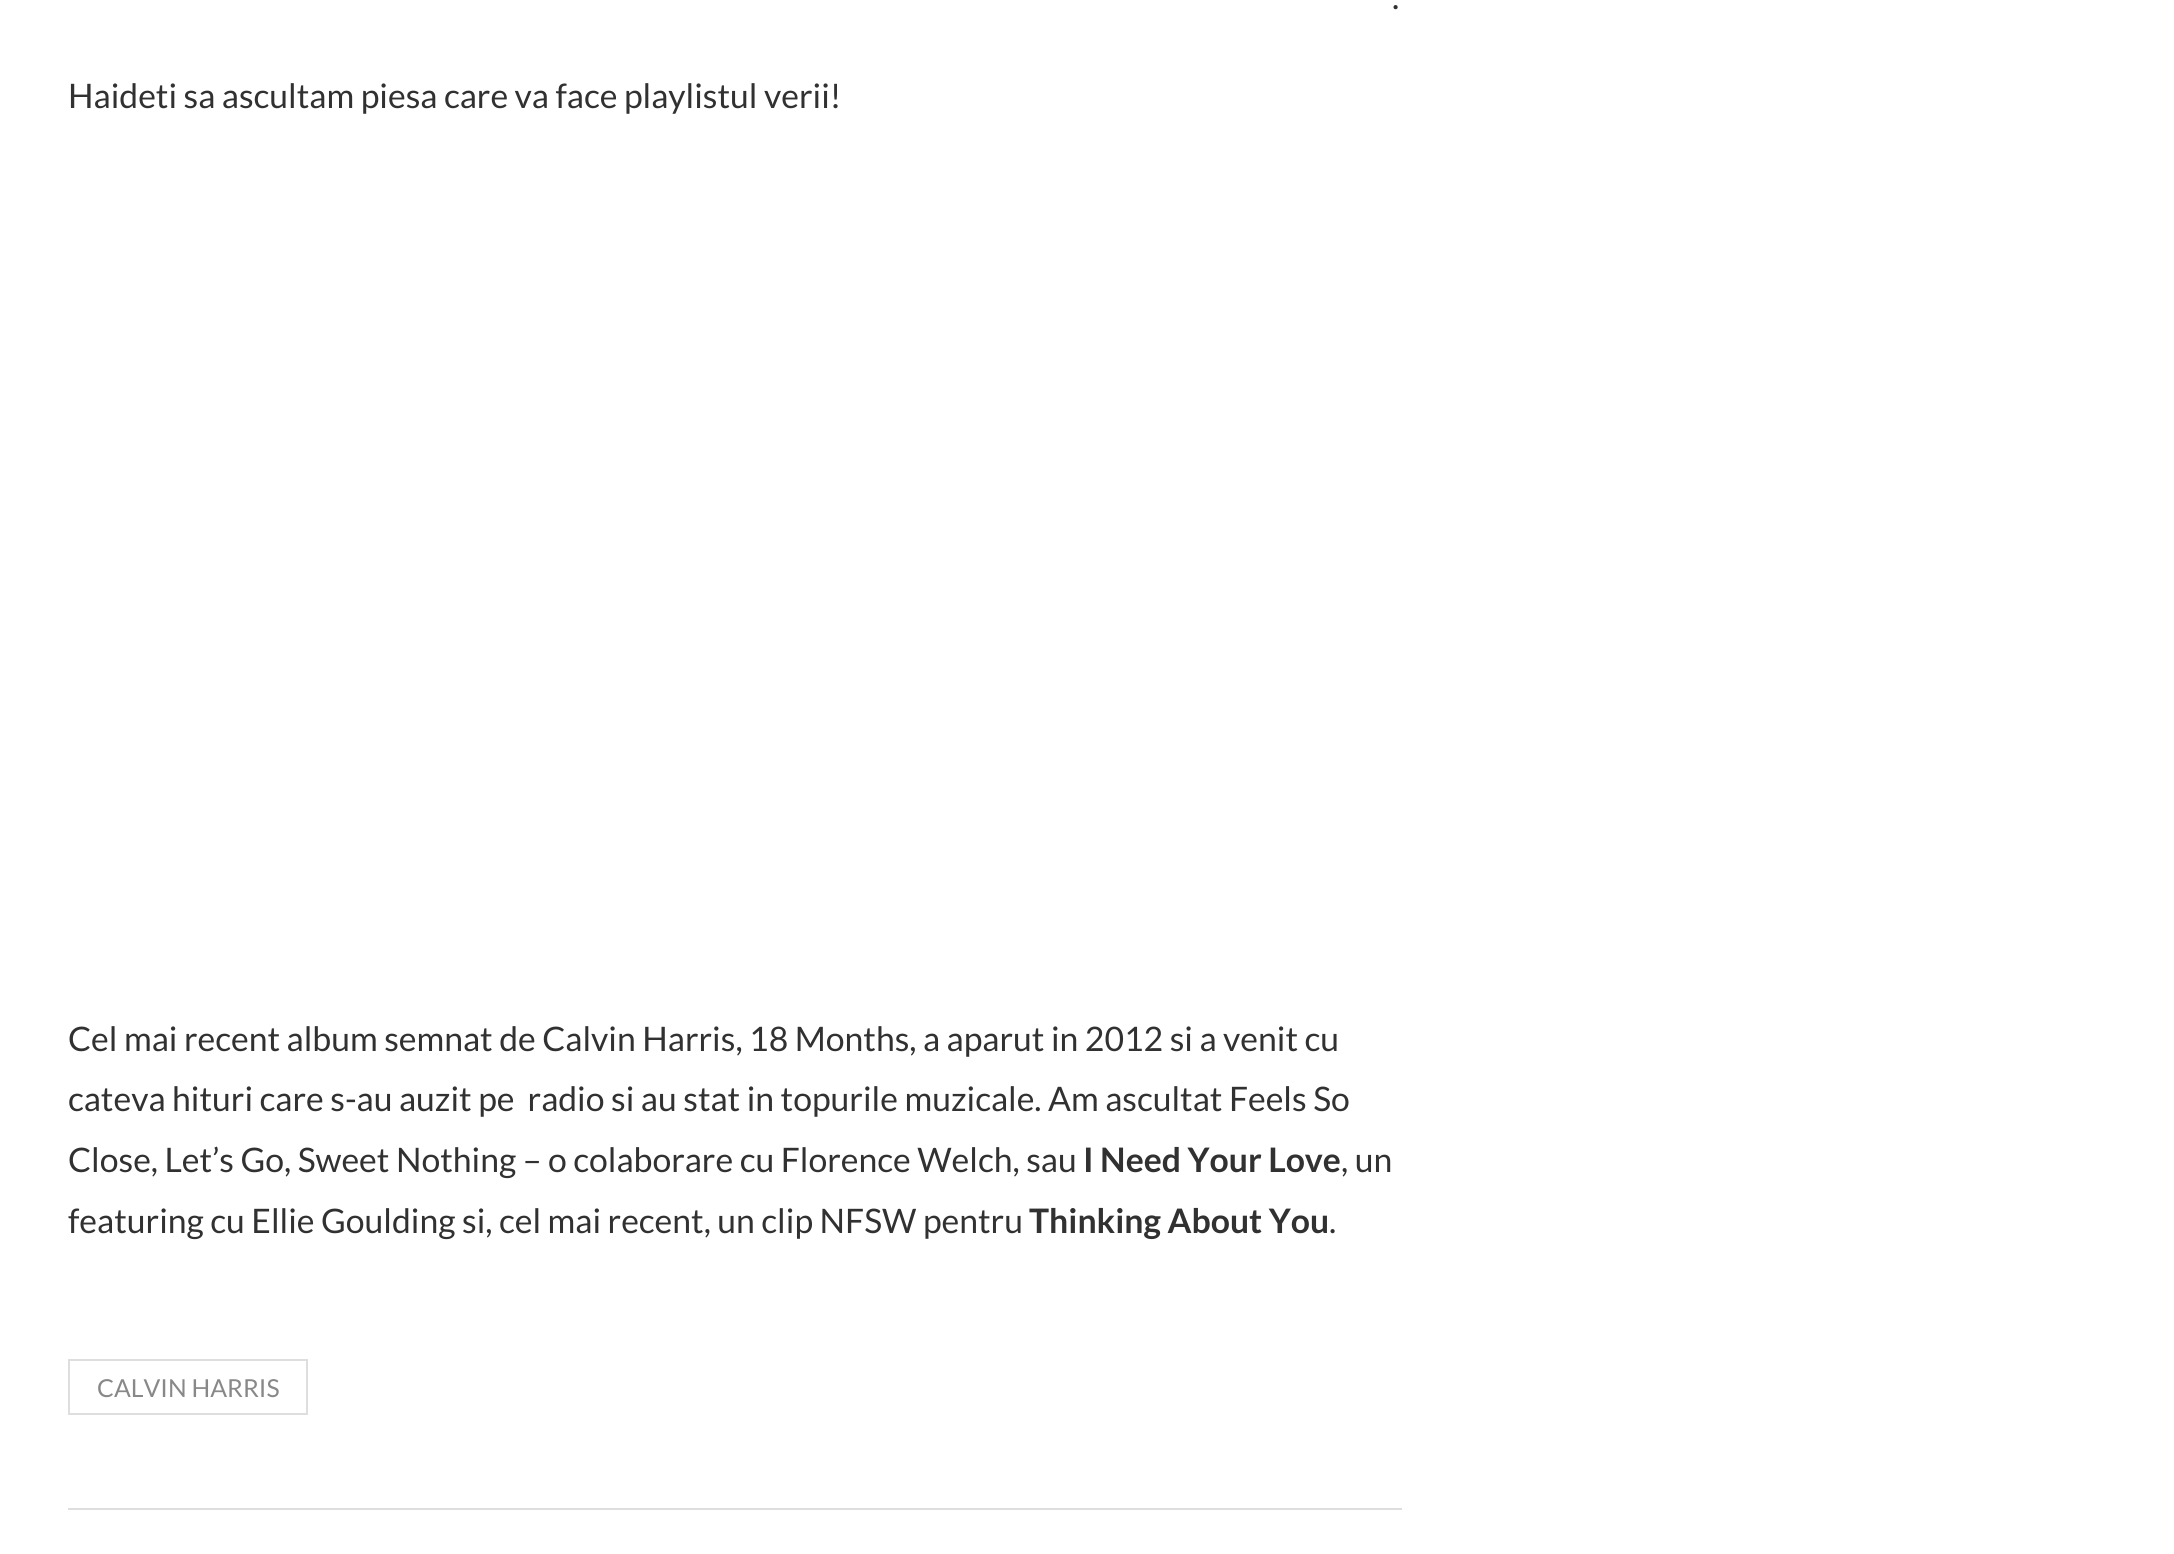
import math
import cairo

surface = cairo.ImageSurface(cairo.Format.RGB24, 2174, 1554)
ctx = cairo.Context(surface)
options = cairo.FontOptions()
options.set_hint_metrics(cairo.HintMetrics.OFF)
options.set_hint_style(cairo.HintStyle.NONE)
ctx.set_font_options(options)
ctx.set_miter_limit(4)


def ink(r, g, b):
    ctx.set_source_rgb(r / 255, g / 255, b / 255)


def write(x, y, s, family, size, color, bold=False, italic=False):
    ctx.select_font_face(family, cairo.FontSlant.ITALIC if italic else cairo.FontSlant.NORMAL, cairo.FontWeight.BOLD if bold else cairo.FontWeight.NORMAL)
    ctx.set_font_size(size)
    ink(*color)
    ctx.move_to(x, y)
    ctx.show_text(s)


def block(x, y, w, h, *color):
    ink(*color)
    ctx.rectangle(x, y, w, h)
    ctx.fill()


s1 = dict(family="Lato", size=33.75, color=(49, 49, 49))
s2 = dict(family="Lato", size=33.75, color=(49, 49, 49), bold=True)
s3 = dict(family="Lato", size=24.75, color=(136, 136, 136))

ink(255, 255, 255)
ctx.paint()
write(1392, 9, ".", **s1)
write(68, 108, "Haideti sa ascultam piesa care va face playlistul verii!", **s1)
write(68, 1051, "Cel mai recent album semnat de Calvin Harris, 18 Months, a aparut in 2012 si a venit cu", **s1)
write(68, 1111, "cateva hituri care s-au auzit pe  radio si au stat in topurile muzicale. Am ascultat Feels So", **s1)
write(68, 1172, "Close, Let’s Go, Sweet Nothing – o colaborare cu Florence Welch, sau", **s1)
write(1083, 1172, "I Need Your Love", **s2)
write(1341, 1172, ", un", **s1)
write(68, 1233, "featuring cu Ellie Goulding si, cel mai recent, un clip NFSW pentru", **s1)
write(1029, 1233, "Thinking About You", **s2)
write(1329, 1233, ".", **s1)
ctx.rectangle(69, 1360, 238, 54)
ink(222, 222, 222)
ctx.stroke()
write(97, 1397, "CALVIN HARRIS", **s3)
block(68, 1508, 1334, 2, 222, 222, 222)
surface.write_to_png("screenshot.png")
